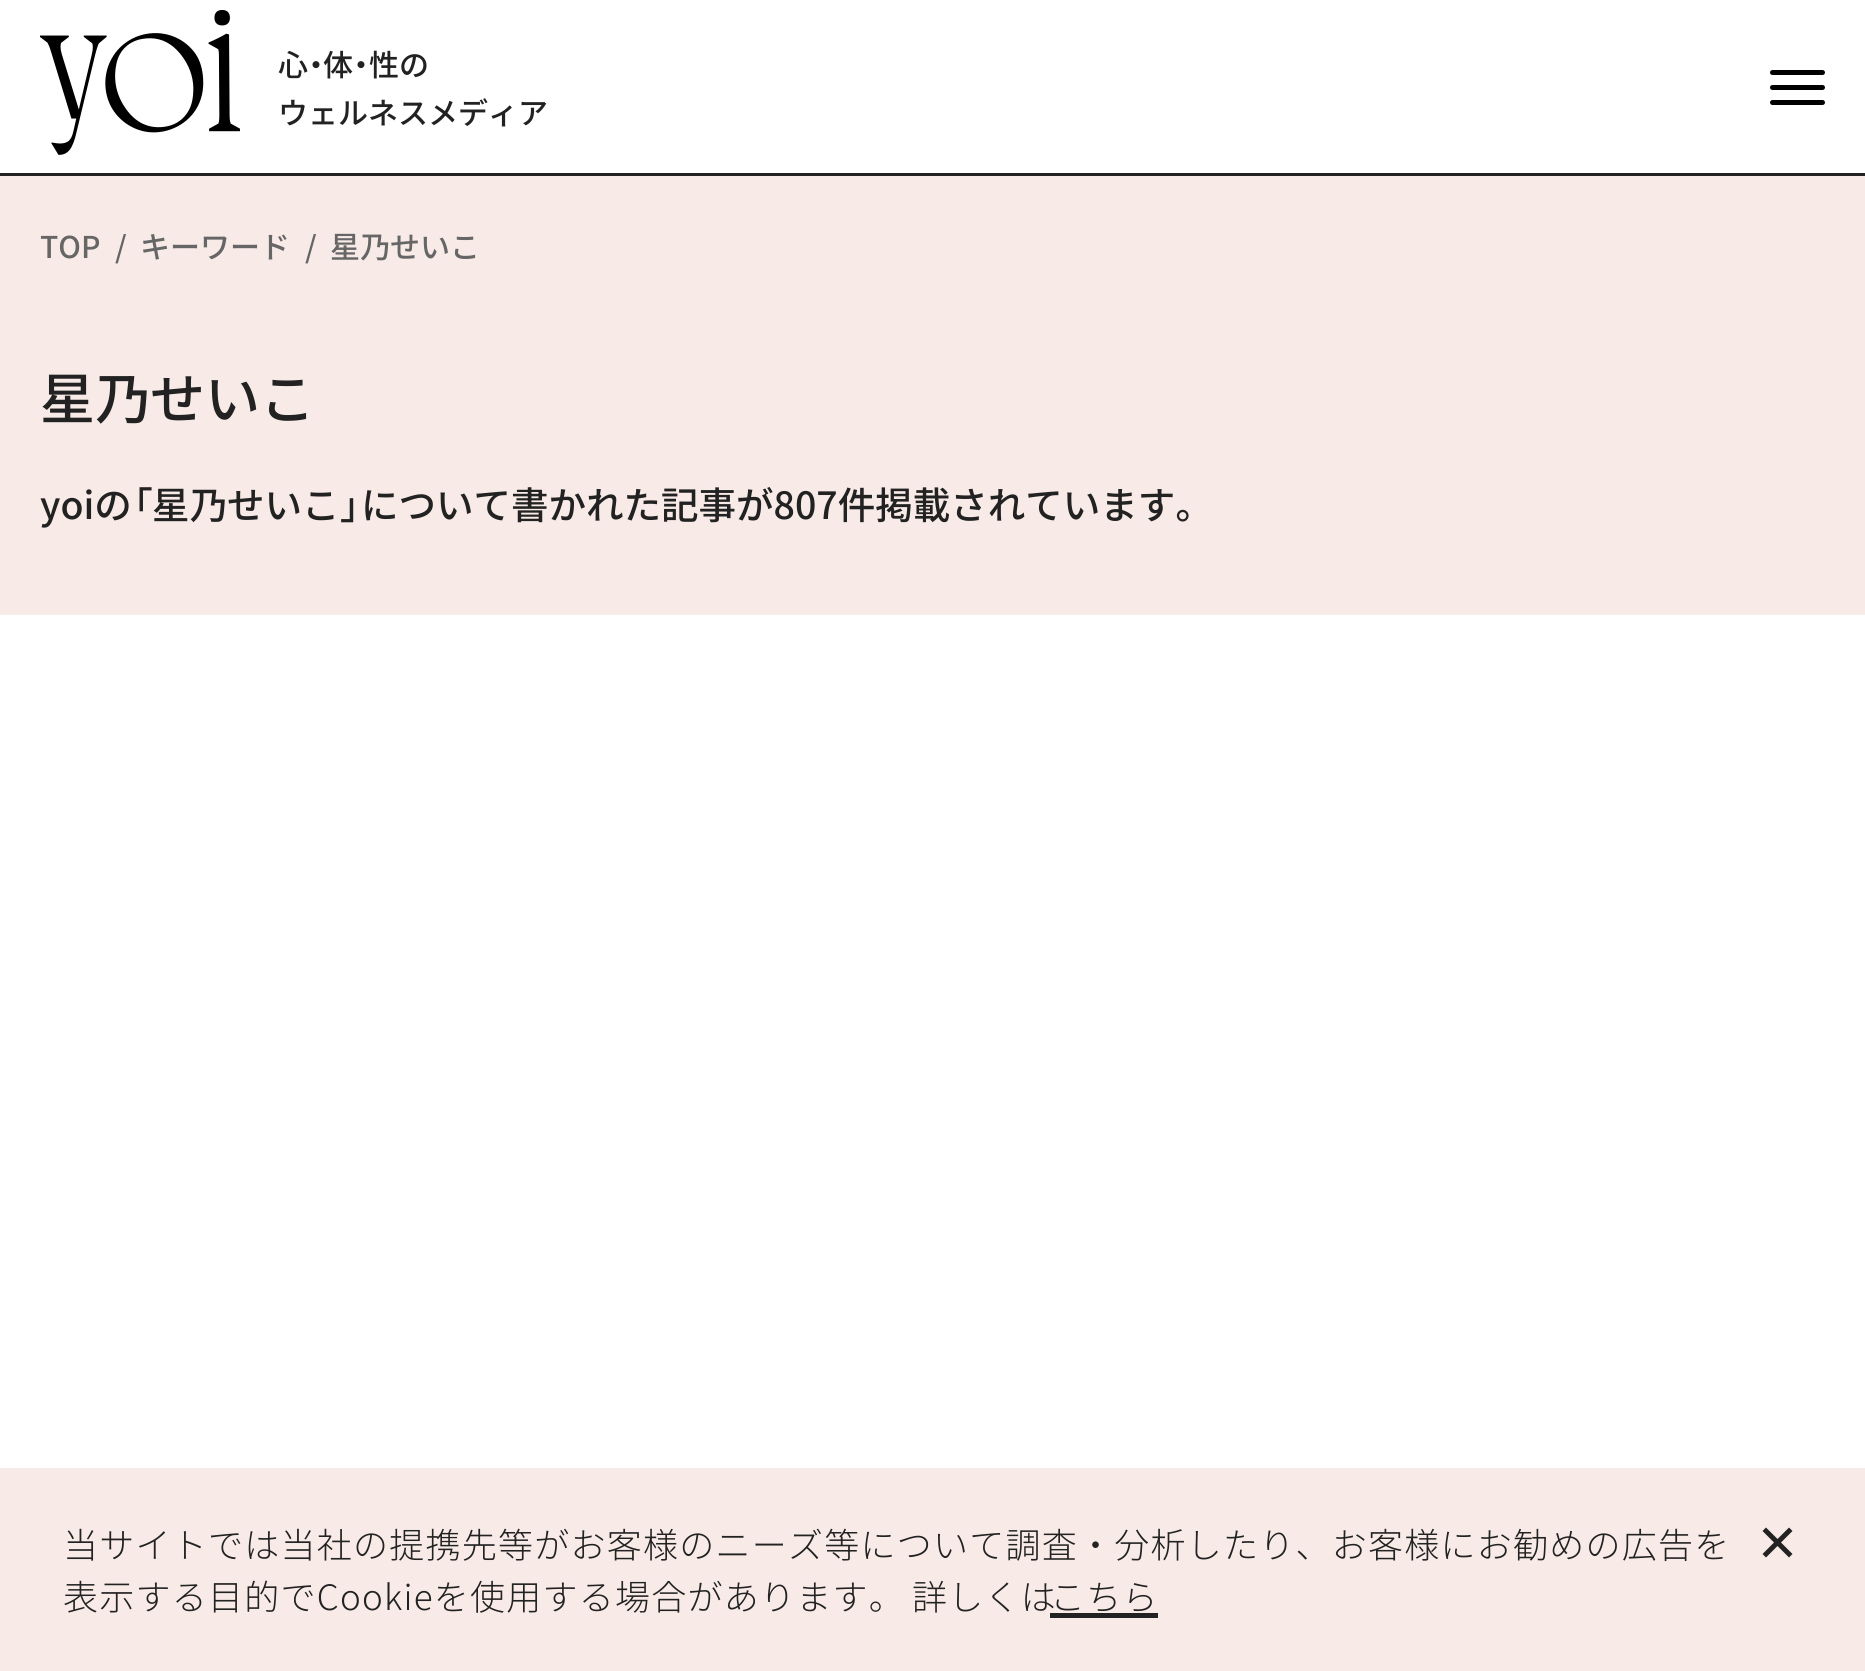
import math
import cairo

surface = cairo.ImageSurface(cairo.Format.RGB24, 1865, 1671)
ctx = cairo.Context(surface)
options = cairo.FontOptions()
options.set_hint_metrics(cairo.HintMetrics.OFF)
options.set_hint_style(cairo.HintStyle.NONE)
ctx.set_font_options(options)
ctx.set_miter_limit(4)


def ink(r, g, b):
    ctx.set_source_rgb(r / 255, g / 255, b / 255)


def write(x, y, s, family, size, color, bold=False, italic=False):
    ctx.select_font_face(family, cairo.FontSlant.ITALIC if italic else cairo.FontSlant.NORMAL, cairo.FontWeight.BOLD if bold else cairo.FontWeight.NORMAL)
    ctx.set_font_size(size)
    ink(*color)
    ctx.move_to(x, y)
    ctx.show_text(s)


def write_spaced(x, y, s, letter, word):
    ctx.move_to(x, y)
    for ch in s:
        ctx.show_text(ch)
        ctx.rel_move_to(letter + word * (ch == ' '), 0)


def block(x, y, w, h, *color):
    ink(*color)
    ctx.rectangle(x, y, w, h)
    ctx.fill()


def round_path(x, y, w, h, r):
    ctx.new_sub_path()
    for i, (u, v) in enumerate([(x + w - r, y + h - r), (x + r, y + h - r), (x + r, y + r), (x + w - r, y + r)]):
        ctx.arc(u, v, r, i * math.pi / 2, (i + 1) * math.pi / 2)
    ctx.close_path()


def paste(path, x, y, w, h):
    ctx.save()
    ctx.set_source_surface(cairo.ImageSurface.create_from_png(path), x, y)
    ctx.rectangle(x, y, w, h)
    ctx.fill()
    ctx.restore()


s1 = dict(family="Noto Sans JP Medium", size=30, color=(34, 34, 34))
s2 = dict(family="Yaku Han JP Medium", size=30, color=(34, 34, 34))
s3 = dict(family="Noto Sans JP Medium", size=30, color=(102, 102, 102))
s4 = dict(family="Noto Sans JP Medium", size=55, color=(34, 34, 34))
s5 = dict(family="Noto Sans JP Medium", size=37.5, color=(34, 34, 34))
s6 = dict(family="Yaku Han JP Medium", size=37.5, color=(34, 34, 34))

ink(255, 255, 255)
ctx.paint()
block(0, 173, 1865, 3, 34, 34, 34)
paste("pic1.png", 40, 10, 200, 145)
write(278, 76, "心", **s1)
write(308, 76, "・", **s2)
write(323, 76, "体", **s1)
write(353, 76, "・", **s2)
write(369, 76, "性の", **s1)
write(278, 124, "ウェルネスメディア", **s1)
ink(0, 0, 0)
round_path(1770, 70, 55, 5, 2.5)
ctx.fill()
round_path(1770, 85, 55, 5, 2.5)
ctx.fill()
round_path(1770, 100, 55, 5, 2.5)
ctx.fill()
block(0, 176, 1865, 439, 248, 235, 231)
write(40, 258, "TOP", **s3)
write(115, 258, "/", **s3)
write(140, 258, "キーワード", **s3)
write(305, 258, "/", **s3)
write(330, 258, "星乃せいこ", **s3)
write(40, 419, "星乃せいこ", **s4)
write(40, 519, "yoiの", **s5)
write(132, 519, "「", **s6)
write(152, 519, "星乃せいこ", **s5)
write(340, 519, "」", **s6)
write(361, 519, "について書かれた記事が807件掲載されています", **s5)
write(1175, 519, "。", **s6)
block(0, 1468, 1865, 203, 248, 235, 231)
ctx.select_font_face("Noto Sans JP Light")
ctx.set_font_size(35)
ink(34, 34, 34)
write_spaced(63, 1558, "当サイトでは当社の提携先等がお客様のニーズ等について調査・分析したり、お客様にお勧めの広告を", 1.25, 0)
write_spaced(63, 1610, "表示する目的でCookieを使用する場合があります。 詳しくは", 1.25, -2)
write_spaced(1050, 1610, "こちら", 1.25, 0)
block(1050, 1613, 108, 5, 34, 34, 34)
ctx.new_path()
ctx.move_to(1789, 1527.5)
ctx.line_to(1792.5, 1531)
ctx.line_to(1766, 1557.5)
ctx.line_to(1762.5, 1554)
ctx.close_path()
ctx.fill()
ctx.new_path()
ctx.move_to(1762.5, 1531)
ctx.line_to(1766, 1527.5)
ctx.line_to(1792.5, 1554)
ctx.line_to(1789, 1557.5)
ctx.close_path()
ctx.fill()
surface.write_to_png("screenshot.png")
